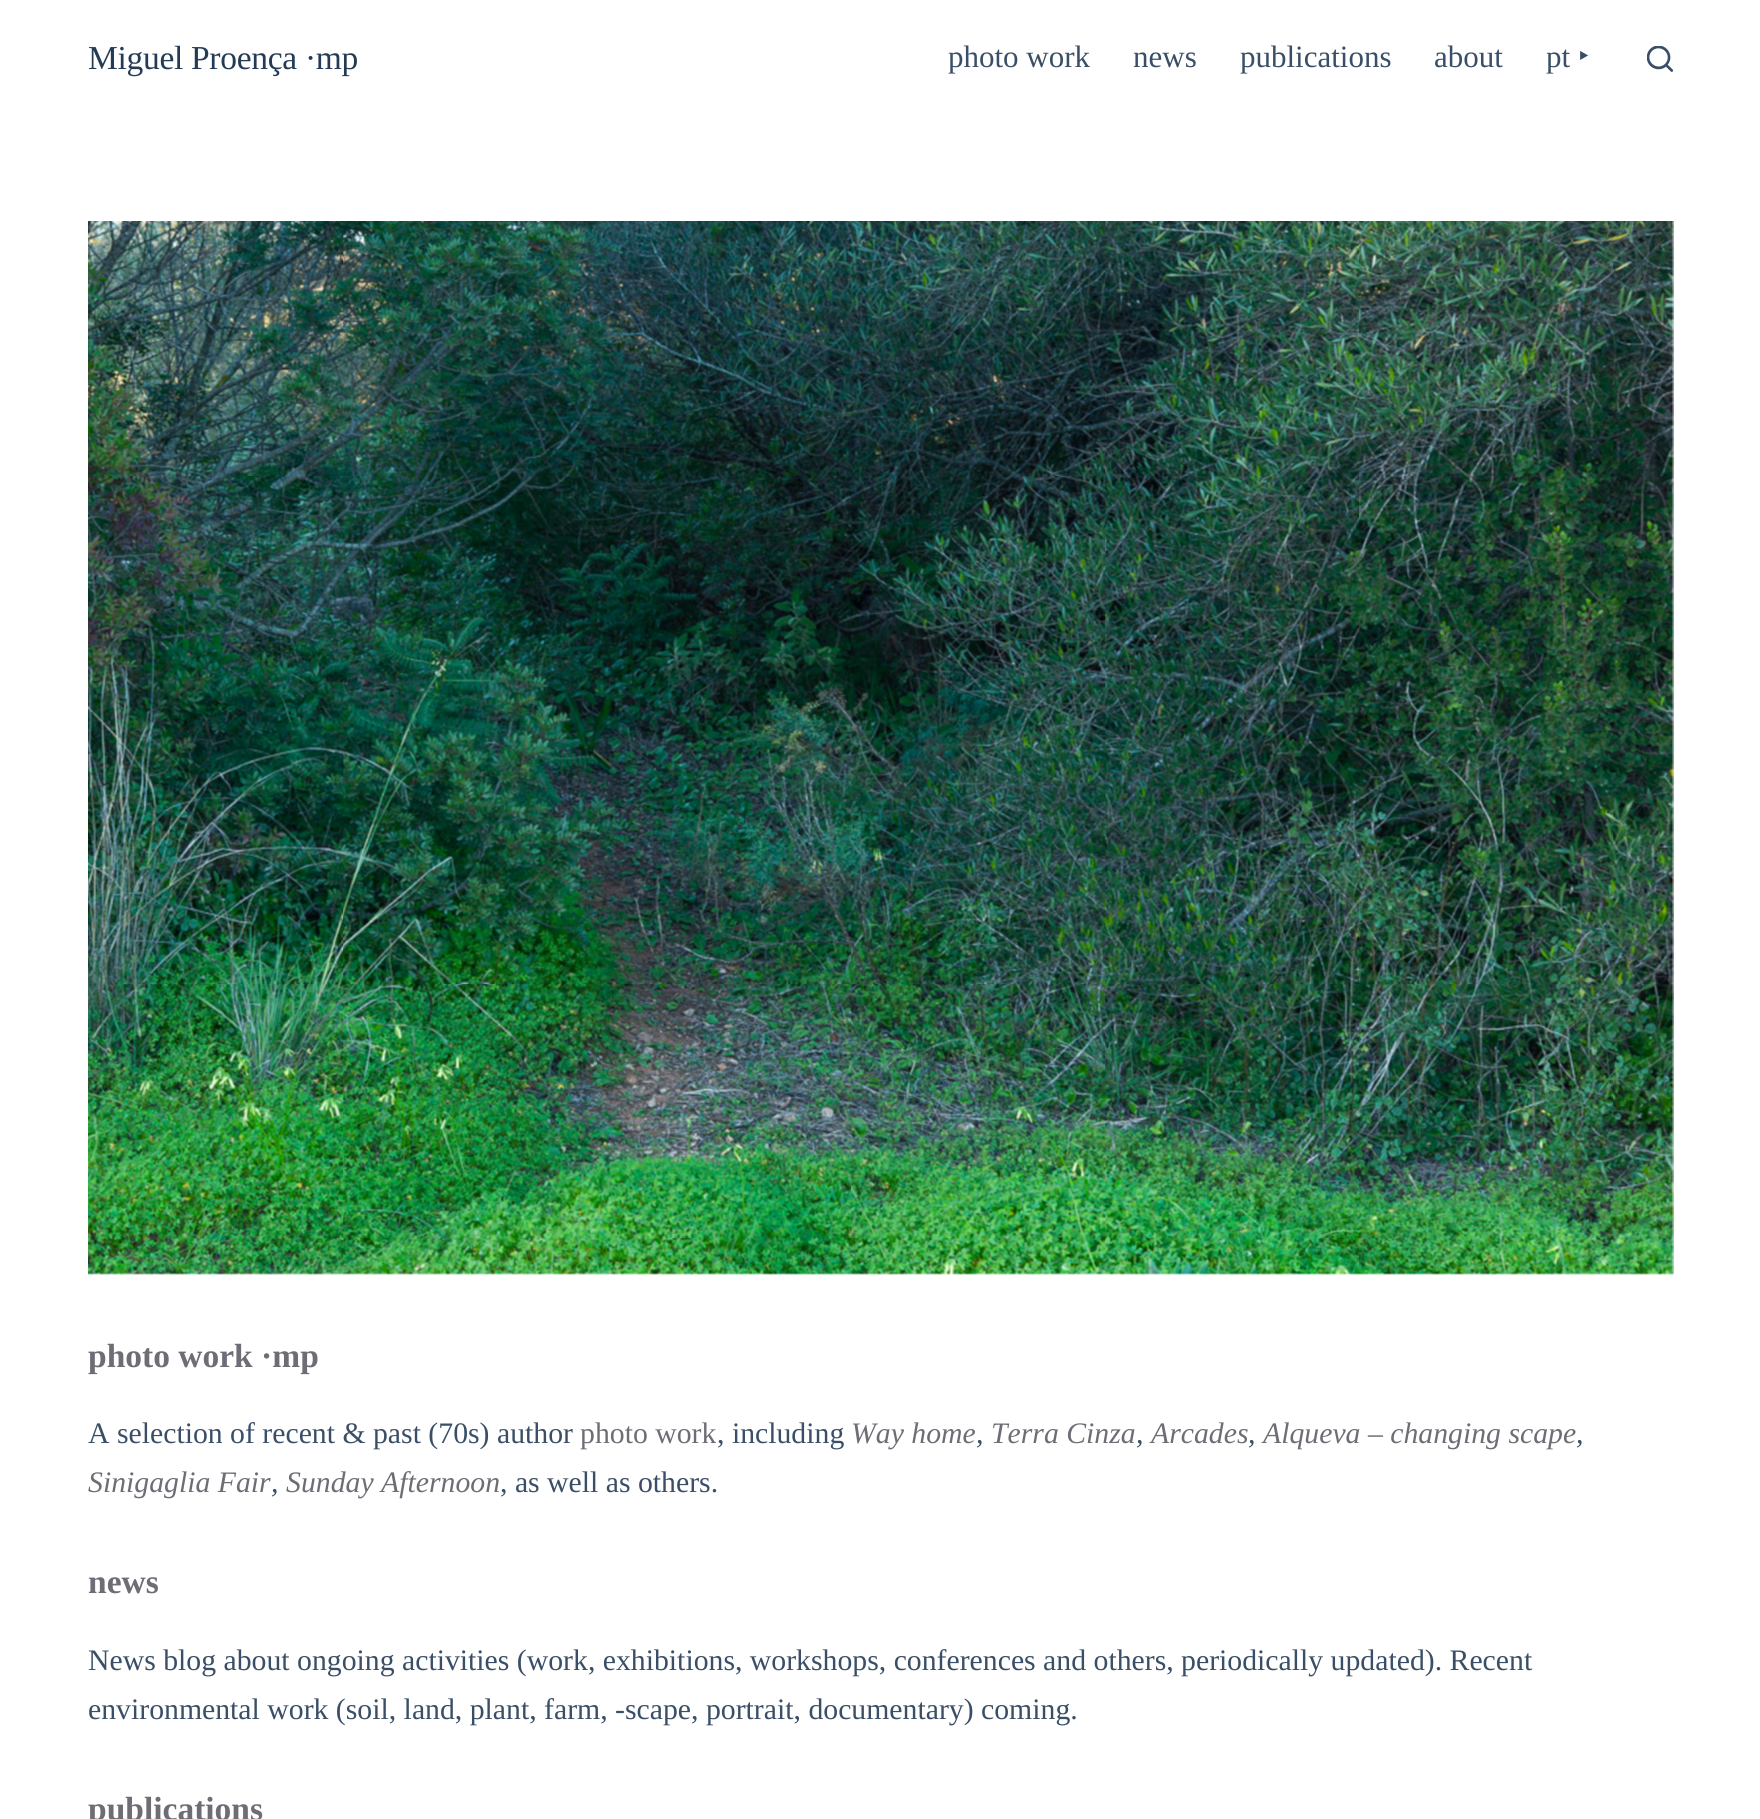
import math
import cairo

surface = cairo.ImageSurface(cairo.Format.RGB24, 1760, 1819)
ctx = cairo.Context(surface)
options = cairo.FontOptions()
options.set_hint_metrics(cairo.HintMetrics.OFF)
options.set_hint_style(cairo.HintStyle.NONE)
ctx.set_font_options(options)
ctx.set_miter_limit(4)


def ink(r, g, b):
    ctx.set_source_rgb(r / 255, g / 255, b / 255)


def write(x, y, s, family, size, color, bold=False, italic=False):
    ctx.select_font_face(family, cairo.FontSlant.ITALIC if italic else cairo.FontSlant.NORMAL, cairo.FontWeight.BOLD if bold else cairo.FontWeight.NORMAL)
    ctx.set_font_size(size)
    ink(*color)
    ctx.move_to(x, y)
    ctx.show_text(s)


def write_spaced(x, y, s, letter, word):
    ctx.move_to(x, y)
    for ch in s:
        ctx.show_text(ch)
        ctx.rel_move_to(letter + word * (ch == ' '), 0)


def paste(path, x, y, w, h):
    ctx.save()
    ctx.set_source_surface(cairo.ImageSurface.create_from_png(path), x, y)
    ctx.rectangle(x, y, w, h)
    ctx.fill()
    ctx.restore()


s1 = dict(family="Liberation Serif", size=31, color=(58, 79, 103))
s2 = dict(family="Noto Sans", size=31, color=(58, 79, 103))
s3 = dict(family="Liberation Serif", size=33.5, color=(110, 109, 118), bold=True)
s4 = dict(family="Liberation Serif", size=29.75, color=(58, 79, 103))
s5 = dict(family="Liberation Serif", size=29.75, color=(110, 109, 118))
s6 = dict(family="Liberation Serif", size=29.75, color=(110, 109, 118), italic=True)
s7 = dict(family="Liberation Serif", size=29.75, color=(58, 79, 103), italic=True)

ink(255, 255, 255)
ctx.paint()
ctx.select_font_face("Liberation Serif")
ctx.set_font_size(33.5)
ink(36, 59, 86)
write_spaced(88, 69, "Miguel Proença ·mp", -0.3, 0)
write(948, 67, "photo work", **s1)
write(1133, 67, "news", **s1)
write(1240, 67, "publications", **s1)
write(1434, 67, "about", **s1)
write(1546, 67, "pt", **s1)
write(1578, 67, "‣", **s2)
paste("pic1.png", 1647, 46, 26, 26)
paste("pic2.png", 88, 221, 1586, 1054)
write(88, 1367, "photo work ·mp", **s3)
write(88, 1443, "A selection of recent & past (70s) author", **s4)
write(580, 1443, "photo work", **s5)
write(717, 1443, ", including", **s4)
write(851, 1443, "Way home", **s6)
write(976, 1443, ",", **s7)
write(991, 1443, "Terra Cinza", **s6)
write(1136, 1443, ",", **s7)
write(1151, 1443, "Arcades", **s6)
write(1248, 1443, ",", **s7)
write(1263, 1443, "Alqueva – changing scape", **s6)
write(1576, 1443, ",", **s7)
write(88, 1492, "Sinigaglia Fair", **s6)
write(271, 1492, ",", **s7)
write(286, 1492, "Sunday Afternoon", **s6)
write(500, 1492, ", as well as others.", **s4)
write(88, 1593, "news", **s3)
write(88, 1670, "News blog about ongoing activities (work, exhibitions, workshops, conferences and others, periodically updated). Recent", **s4)
write(88, 1719, "environmental work (soil, land, plant, farm, -scape, portrait, documentary) coming.", **s4)
write(88, 1820, "publications", **s3)
surface.write_to_png("screenshot.png")
